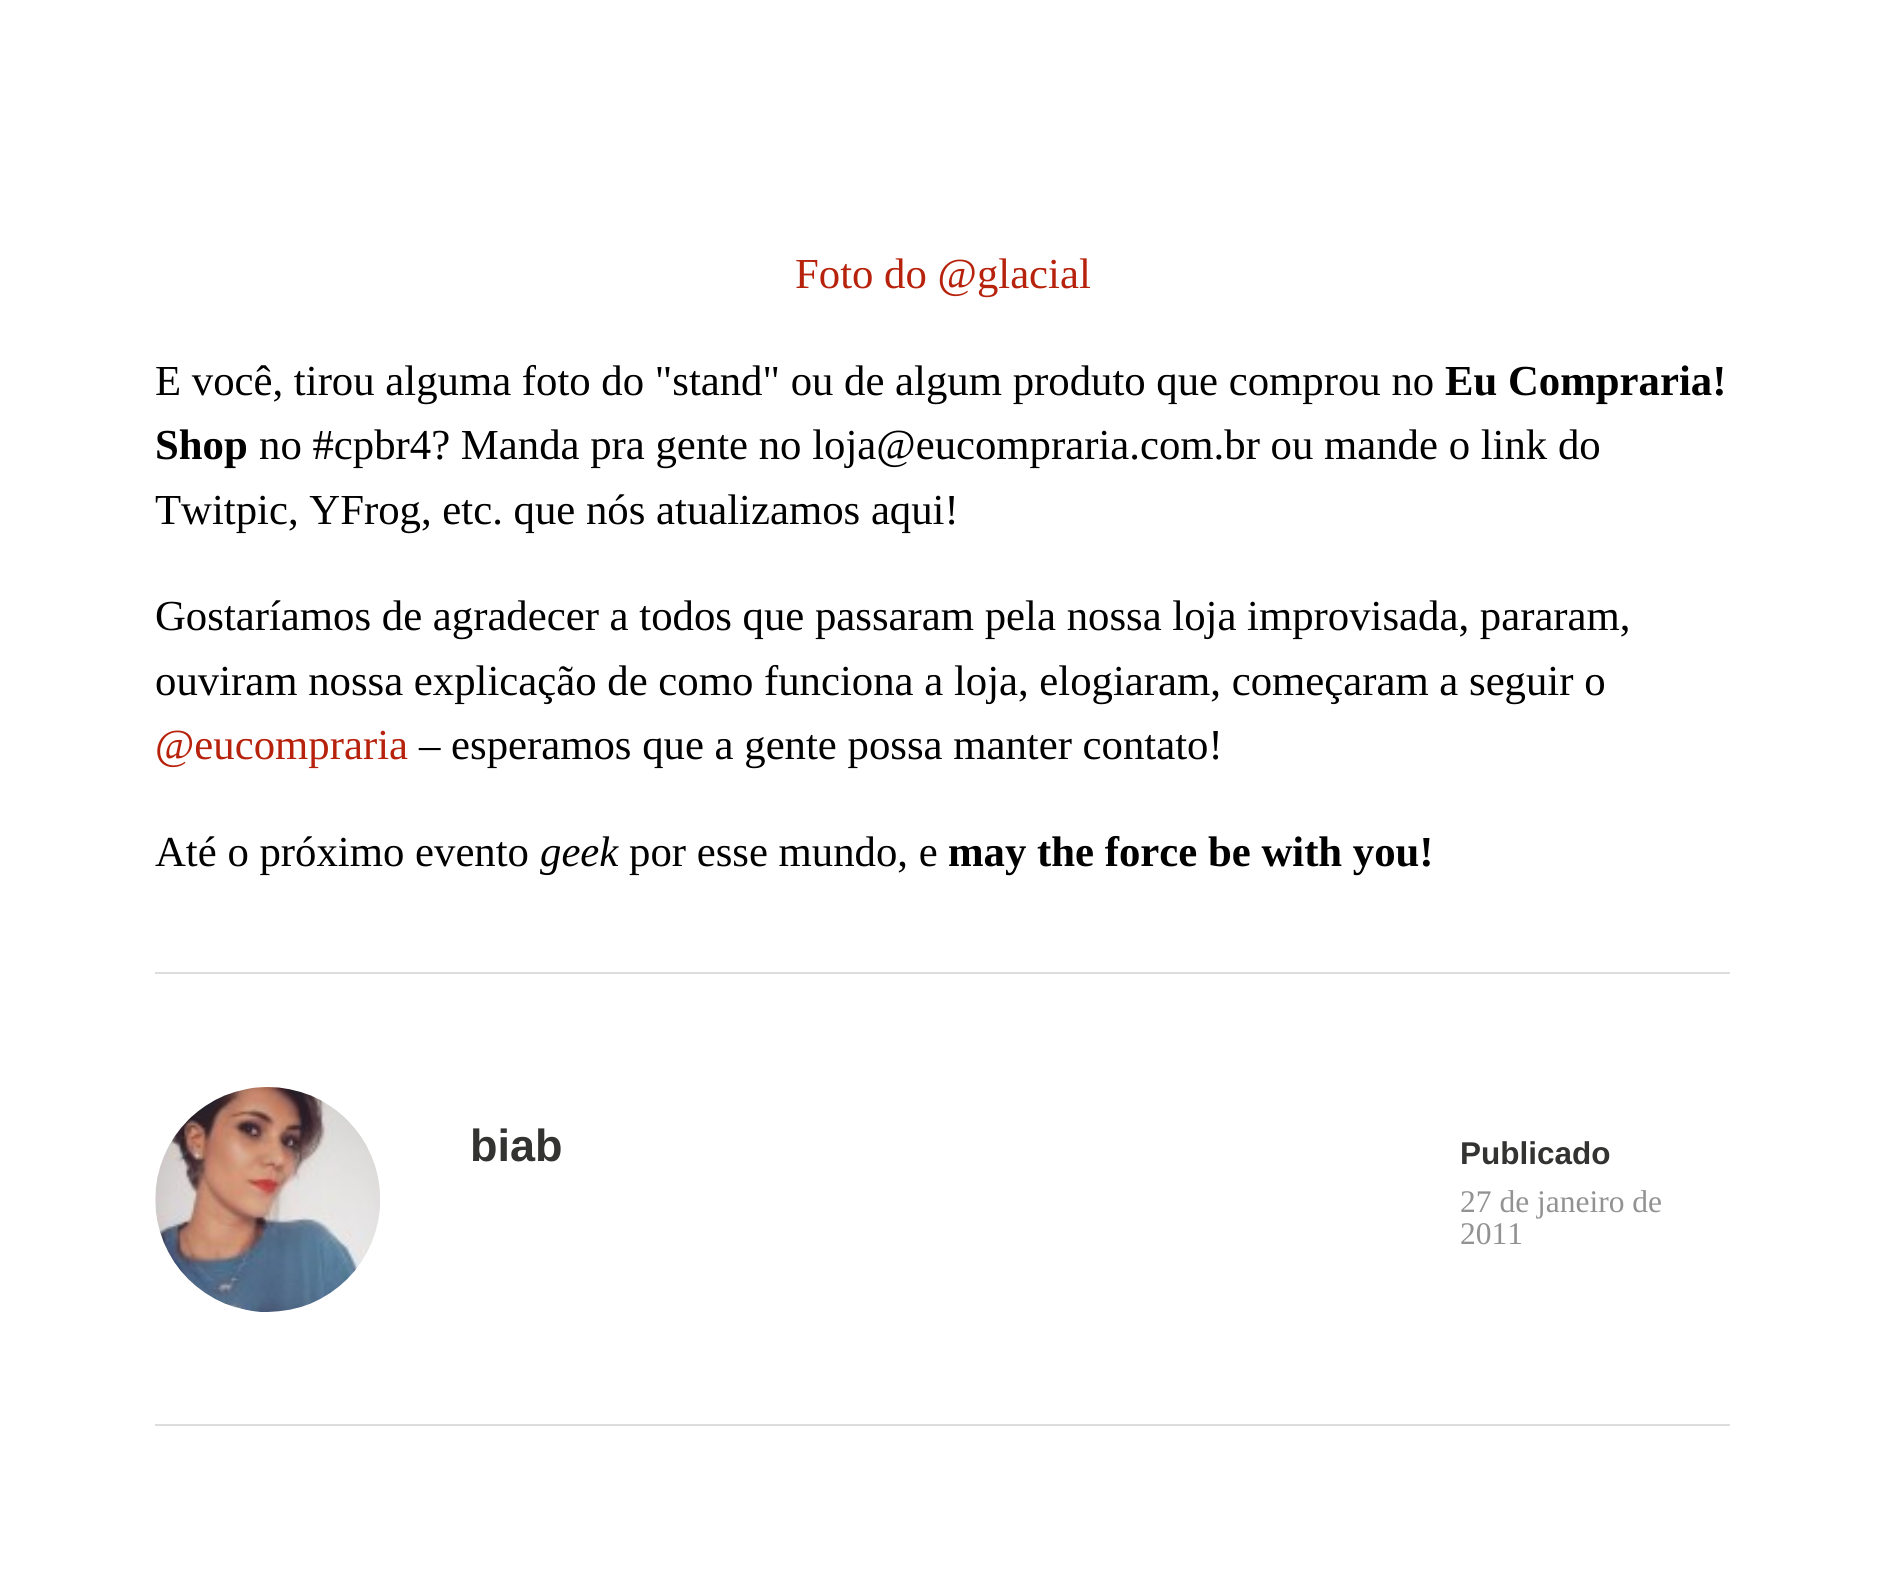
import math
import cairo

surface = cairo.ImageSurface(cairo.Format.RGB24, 1885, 1594)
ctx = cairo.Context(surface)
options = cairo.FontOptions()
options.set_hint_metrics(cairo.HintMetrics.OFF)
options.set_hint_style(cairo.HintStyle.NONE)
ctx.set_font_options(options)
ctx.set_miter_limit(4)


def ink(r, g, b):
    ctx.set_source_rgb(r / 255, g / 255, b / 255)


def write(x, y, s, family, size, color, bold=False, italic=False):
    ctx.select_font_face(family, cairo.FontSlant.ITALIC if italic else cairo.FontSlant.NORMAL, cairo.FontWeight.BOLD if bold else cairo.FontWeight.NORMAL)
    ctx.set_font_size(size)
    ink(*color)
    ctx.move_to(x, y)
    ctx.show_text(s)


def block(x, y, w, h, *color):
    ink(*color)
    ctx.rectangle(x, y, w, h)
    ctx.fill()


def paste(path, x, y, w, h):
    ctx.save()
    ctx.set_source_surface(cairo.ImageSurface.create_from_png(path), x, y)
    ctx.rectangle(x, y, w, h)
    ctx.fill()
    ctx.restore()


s1 = dict(family="Liberation Serif", size=42.75, color=(183, 34, 12))
s2 = dict(family="Liberation Serif", size=42.75, color=(0, 0, 0))
s3 = dict(family="Liberation Serif", size=42.75, color=(0, 0, 0), bold=True)
s4 = dict(family="Liberation Serif", size=42.75, color=(0, 0, 0), italic=True)
s5 = dict(family="Liberation Sans", size=45, color=(51, 51, 50), bold=True)
s6 = dict(family="Liberation Sans", size=31.5, color=(51, 51, 50), bold=True)
s7 = dict(family="Liberation Serif", size=31.5, color=(146, 146, 146))

ink(255, 255, 255)
ctx.paint()
write(795, 288, "Foto do @glacial", **s1)
write(155, 395, "E você, tirou alguma foto do \"stand\" ou de algum produto que comprou no", **s2)
write(1445, 395, "Eu Compraria!", **s3)
write(155, 459, "Shop", **s3)
write(259, 459, "no #cpbr4? Manda pra gente no loja@eucompraria.com.br ou mande o link do", **s2)
write(155, 524, "Twitpic, YFrog, etc. que nós atualizamos aqui!", **s2)
write(155, 630, "Gostaríamos de agradecer a todos que passaram pela nossa loja improvisada, pararam,", **s2)
write(155, 695, "ouviram nossa explicação de como funciona a loja, elogiaram, começaram a seguir o", **s2)
write(155, 759, "@eucompraria", **s1)
write(419, 759, "– esperamos que a gente possa manter contato!", **s2)
write(155, 866, "Até o próximo evento", **s2)
write(540, 866, "geek", **s4)
write(629, 866, "por esse mundo, e", **s2)
write(948, 866, "may the force be with you!", **s3)
block(155, 972, 1575, 2, 221, 221, 221)
block(155, 1424, 1575, 2, 221, 221, 221)
paste("pic1.png", 155, 1087, 225, 225)
write(470, 1161, "biab", **s5)
write(1460, 1164, "Publicado", **s6)
write(1460, 1212, "27 de janeiro de", **s7)
write(1460, 1244, "2011", **s7)
surface.write_to_png("screenshot.png")
